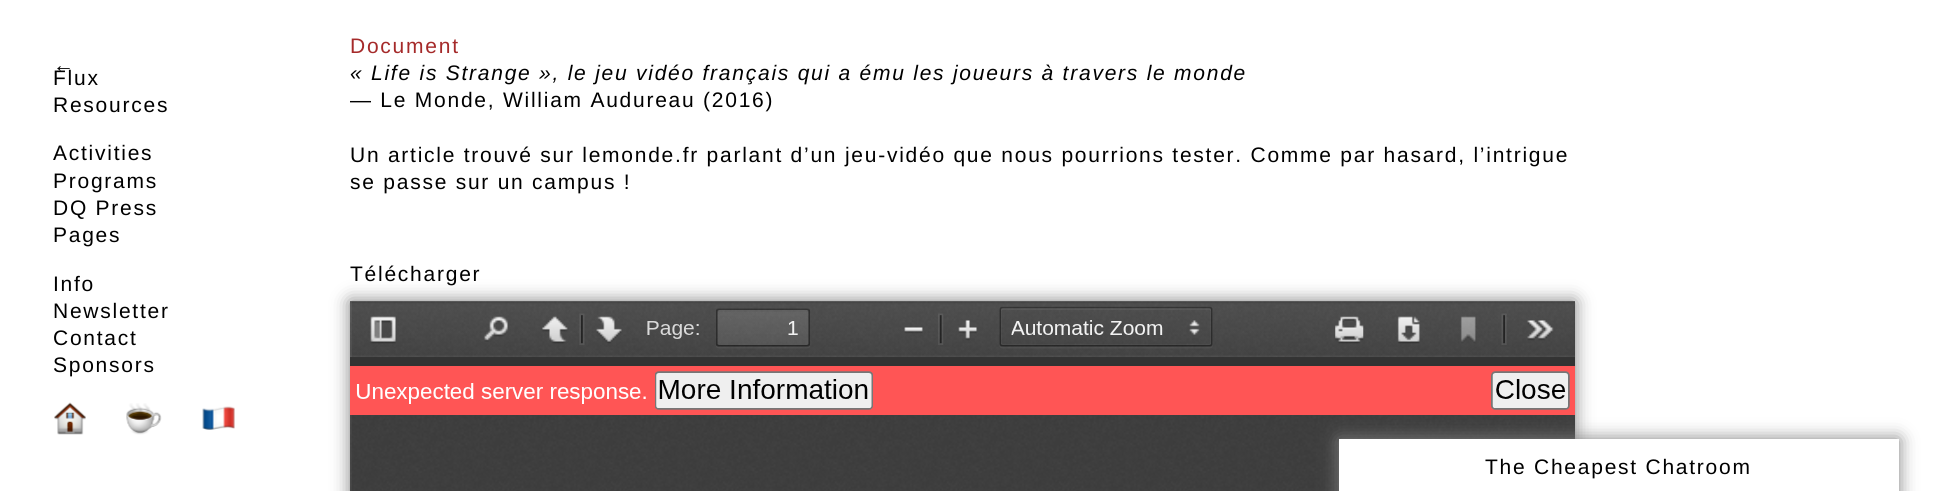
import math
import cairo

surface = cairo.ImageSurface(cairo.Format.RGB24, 1950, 491)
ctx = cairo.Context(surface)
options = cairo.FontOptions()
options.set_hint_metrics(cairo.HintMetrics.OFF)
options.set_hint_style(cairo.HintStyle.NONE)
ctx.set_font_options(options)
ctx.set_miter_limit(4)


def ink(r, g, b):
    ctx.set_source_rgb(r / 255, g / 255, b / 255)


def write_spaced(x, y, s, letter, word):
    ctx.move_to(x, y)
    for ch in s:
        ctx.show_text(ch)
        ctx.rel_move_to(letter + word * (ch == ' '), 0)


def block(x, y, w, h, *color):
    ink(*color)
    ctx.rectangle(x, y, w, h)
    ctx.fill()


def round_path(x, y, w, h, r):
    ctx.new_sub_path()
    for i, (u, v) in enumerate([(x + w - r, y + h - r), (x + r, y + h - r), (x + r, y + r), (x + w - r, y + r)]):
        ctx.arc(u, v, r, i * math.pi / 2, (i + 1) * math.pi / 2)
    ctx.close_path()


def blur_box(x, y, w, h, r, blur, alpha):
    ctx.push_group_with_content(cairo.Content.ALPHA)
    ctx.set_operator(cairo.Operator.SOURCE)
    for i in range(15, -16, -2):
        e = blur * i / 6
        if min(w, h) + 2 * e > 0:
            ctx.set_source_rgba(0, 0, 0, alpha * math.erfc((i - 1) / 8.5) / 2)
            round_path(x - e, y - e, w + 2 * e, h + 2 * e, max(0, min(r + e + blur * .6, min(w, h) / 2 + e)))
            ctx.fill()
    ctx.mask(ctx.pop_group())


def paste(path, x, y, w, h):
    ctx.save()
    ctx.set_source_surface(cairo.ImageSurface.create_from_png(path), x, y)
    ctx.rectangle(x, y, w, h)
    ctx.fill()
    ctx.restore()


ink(255, 255, 255)
ctx.paint()
ctx.select_font_face("Liberation Sans")
ctx.set_font_size(21)
ink(0, 0, 0)
write_spaced(53, 72, "←", 1.75, 0)
ink(165, 42, 42)
write_spaced(350, 53, "Document", 1.75, 0)
ctx.select_font_face("Liberation Sans", cairo.FontSlant.ITALIC)
ink(0, 0, 0)
write_spaced(350, 80, "« Life is Strange », le jeu vidéo français qui a ému les joueurs à travers le monde", 1.75, 0)
ctx.select_font_face("Liberation Sans")
write_spaced(350, 107, "— Le Monde, William Audureau (2016)", 1.75, 0)
write_spaced(350, 162, "Un article trouvé sur lemonde.fr parlant d’un jeu-vidéo que nous pourrions tester. Comme par hasard, l’intrigue", 1.75, 0)
write_spaced(350, 189, "se passe sur un campus !", 1.75, 0)
write_spaced(350, 281, "Télécharger", 1.75, 0)
ink(128, 128, 128)
blur_box(350, 301, 1225, 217, 0, 9, 1)
paste("pic1.png", 350, 301, 1225, 190)
ink(0, 0, 0)
write_spaced(53, 85, "Flux", 1.75, 0)
write_spaced(53, 112, "Resources", 1.75, 0)
write_spaced(53, 160, "Activities", 1.75, 0)
write_spaced(53, 188, "Programs", 1.75, 0)
write_spaced(53, 215, "DQ Press", 1.75, 0)
write_spaced(53, 242, "Pages", 1.75, 0)
write_spaced(53, 291, "Info", 1.75, 0)
write_spaced(53, 318, "Newsletter", 1.75, 0)
write_spaced(53, 345, "Contact", 1.75, 0)
write_spaced(53, 372, "Sponsors", 1.75, 0)
paste("pic2.png", 54, 402, 32, 33)
paste("pic3.png", 126, 403, 36, 32)
paste("pic4.png", 202, 406, 33, 24)
ink(128, 128, 128)
blur_box(1339, 439, 560, 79, 0, 9, 1)
block(1339, 439, 560, 52, 255, 255, 255)
ink(0, 0, 0)
write_spaced(1485, 474, "The Cheapest Chatroom", 1.75, 0)
surface.write_to_png("screenshot.png")
